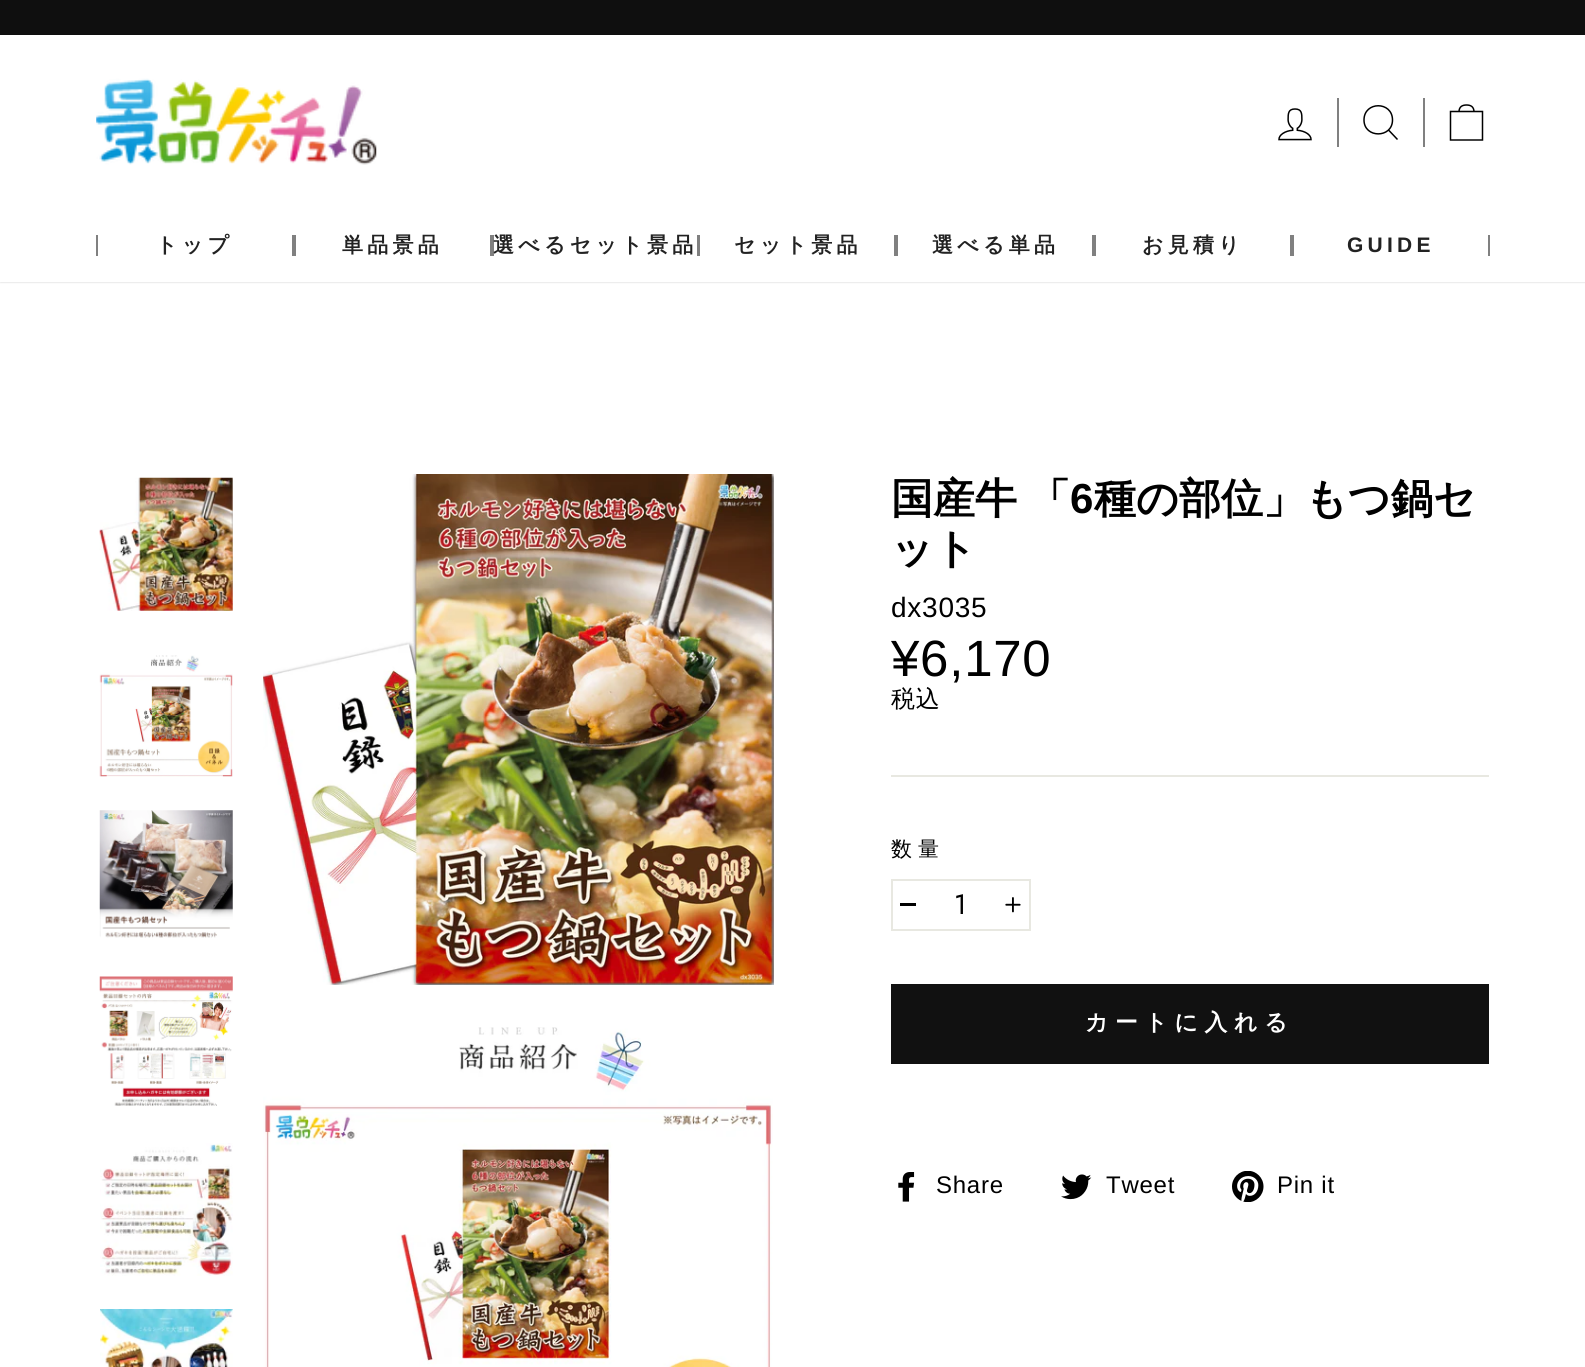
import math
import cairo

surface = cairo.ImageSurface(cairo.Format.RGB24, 1585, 1367)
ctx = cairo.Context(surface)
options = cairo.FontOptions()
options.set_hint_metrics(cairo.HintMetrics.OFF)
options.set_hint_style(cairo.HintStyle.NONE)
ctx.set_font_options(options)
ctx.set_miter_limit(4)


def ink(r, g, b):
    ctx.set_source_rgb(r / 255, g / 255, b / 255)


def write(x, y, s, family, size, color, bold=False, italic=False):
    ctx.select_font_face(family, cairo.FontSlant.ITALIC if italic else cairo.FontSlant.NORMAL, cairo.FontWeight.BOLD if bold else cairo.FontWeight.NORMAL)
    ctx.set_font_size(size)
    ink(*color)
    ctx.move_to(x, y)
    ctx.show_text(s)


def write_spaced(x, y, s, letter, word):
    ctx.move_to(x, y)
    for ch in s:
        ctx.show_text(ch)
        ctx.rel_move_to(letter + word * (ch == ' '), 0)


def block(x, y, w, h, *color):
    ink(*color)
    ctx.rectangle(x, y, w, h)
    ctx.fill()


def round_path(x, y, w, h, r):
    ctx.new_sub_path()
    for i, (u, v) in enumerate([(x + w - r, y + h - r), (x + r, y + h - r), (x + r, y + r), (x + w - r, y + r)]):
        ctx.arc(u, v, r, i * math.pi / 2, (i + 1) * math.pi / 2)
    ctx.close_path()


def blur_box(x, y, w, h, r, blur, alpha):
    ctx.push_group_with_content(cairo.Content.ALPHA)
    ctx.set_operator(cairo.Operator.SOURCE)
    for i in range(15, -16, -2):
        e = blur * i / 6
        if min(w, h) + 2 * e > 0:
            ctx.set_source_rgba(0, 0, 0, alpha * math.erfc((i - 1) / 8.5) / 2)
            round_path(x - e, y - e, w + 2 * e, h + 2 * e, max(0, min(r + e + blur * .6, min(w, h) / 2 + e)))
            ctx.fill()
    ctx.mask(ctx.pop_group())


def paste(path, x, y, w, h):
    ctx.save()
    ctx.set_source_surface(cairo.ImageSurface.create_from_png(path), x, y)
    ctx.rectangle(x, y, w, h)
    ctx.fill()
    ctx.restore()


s1 = dict(family="Liberation Sans", size=42, color=(0, 0, 0), bold=True)
s2 = dict(family="WenQuanYi Zen Hei", size=42, color=(0, 0, 0), bold=True)

ink(255, 255, 255)
ctx.paint()
block(0, 0, 1585, 35, 15, 15, 15)
ink(0, 0, 0)
blur_box(0, 35, 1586, 247, 0, 1, 0.2)
block(0, 35, 1585, 247, 255, 255, 255)
paste("pic1.png", 96, 78, 281, 87)
block(1337, 98, 2, 49, 128, 128, 128)
paste("pic2.png", 1278, 108, 34, 33)
block(1423, 98, 2, 49, 128, 128, 128)
ctx.new_path()
ctx.move_to(1392.5, 120)
ctx.curve_to(1392.5, 138.5, 1364, 138.5, 1364, 120)
ctx.curve_to(1364, 101, 1392.5, 101, 1392.5, 120)
ctx.close_path()
ctx.move_to(1397.5, 139.5)
ctx.line_to(1388.5, 130)
ink(0, 0, 0)
ctx.set_line_width(1.5)
ctx.stroke()
ctx.new_path()
ctx.move_to(1450.5, 111.5)
ctx.line_to(1482.5, 111.5)
ctx.line_to(1482.5, 140)
ctx.line_to(1450.5, 140)
ctx.close_path()
ctx.move_to(1459, 112)
ctx.curve_to(1459, 106.5, 1462.5, 105, 1466.5, 105)
ctx.curve_to(1470.5, 105, 1474, 106.5, 1474, 112)
ctx.stroke()
block(292, 235, 4, 21, 128, 128, 128)
block(96, 235, 2, 21, 128, 128, 128)
ctx.select_font_face("WenQuanYi Zen Hei", cairo.FontSlant.NORMAL, cairo.FontWeight.BOLD)
ctx.set_font_size(21)
ink(34, 34, 34)
write_spaced(156, 252, "トップ", 4.25, 0)
block(490, 235, 4, 21, 128, 128, 128)
ink(34, 34, 34)
write_spaced(342, 252, "単品景品", 4.25, 0)
block(697, 235, 3, 21, 128, 128, 128)
ink(34, 34, 34)
write_spaced(493, 252, "選べるセット景品", 4.25, 0)
block(894, 235, 4, 21, 128, 128, 128)
ink(34, 34, 34)
write_spaced(734, 252, "セット景品", 4.25, 0)
block(1092, 235, 4, 21, 128, 128, 128)
ink(34, 34, 34)
write_spaced(932, 252, "選べる単品", 4.25, 0)
block(1290, 235, 4, 21, 128, 128, 128)
ink(34, 34, 34)
write_spaced(1142, 252, "お見積り", 4.25, 0)
block(1488, 235, 2, 21, 128, 128, 128)
ctx.select_font_face("Liberation Sans", cairo.FontSlant.NORMAL, cairo.FontWeight.BOLD)
ink(34, 34, 34)
write_spaced(1347, 252, "GUIDE", 4.25, 0)
paste("pic3.png", 99, 477, 134, 134)
paste("pic4.png", 99, 655, 134, 122)
paste("pic5.png", 99, 810, 134, 128)
paste("pic6.png", 99, 976, 134, 130)
paste("pic7.png", 100, 1143, 133, 133)
paste("pic8.png", 100, 1309, 133, 58)
paste("pic9.png", 263, 474, 511, 511)
paste("pic10.png", 263, 1027, 510, 340)
ctx.select_font_face("WenQuanYi Zen Hei", cairo.FontSlant.NORMAL, cairo.FontWeight.BOLD)
ctx.set_font_size(42)
ink(0, 0, 0)
write_spaced(891, 513, "国産牛 「", 0, -1)
write(1070, 513, "6", **s1)
write(1094, 513, "種の部位」もつ鍋セ", **s2)
write(891, 563, "ット", **s2)
ctx.select_font_face("Liberation Sans")
ctx.set_font_size(28)
write_spaced(891, 617, "dx3035", 0.75, 0)
ctx.set_font_size(51)
write_spaced(891, 676, "¥6,170", 0.75, 0)
ctx.select_font_face("WenQuanYi Zen Hei Medium")
ctx.set_font_size(24)
write_spaced(891, 707, "税込", 0.75, 0)
block(891, 775, 598, 2, 232, 232, 225)
ctx.set_font_size(21)
ink(0, 0, 0)
write_spaced(891, 856, "数量", 6, 0)
ctx.rectangle(892, 880, 138, 50)
ink(232, 232, 225)
ctx.set_line_width(2)
ctx.stroke()
block(900, 903, 16, 3, 0, 0, 0)
ctx.select_font_face("Jost")
ctx.set_font_size(28)
write_spaced(954, 914, "1", 0.75, 0)
paste("pic11.png", 1005, 897, 16, 16)
block(891, 984, 598, 80, 17, 17, 17)
ctx.select_font_face("WenQuanYi Zen Hei", cairo.FontSlant.NORMAL, cairo.FontWeight.BOLD)
ctx.set_font_size(22.75)
ink(255, 255, 255)
write_spaced(1085, 1030, "カートに入れる", 6.75, 0)
paste("pic12.png", 898, 1172, 17, 30)
ctx.select_font_face("Liberation Sans")
ctx.set_font_size(24)
ink(0, 0, 0)
write_spaced(936, 1193, "Share", 0.75, 0)
paste("pic13.png", 1061, 1174, 31, 26)
write_spaced(1106, 1193, "Tweet", 0.75, 0)
paste("pic14.png", 1232, 1171, 32, 31)
write_spaced(1277, 1193, "Pin it", 0.75, 0)
surface.write_to_png("screenshot.png")
